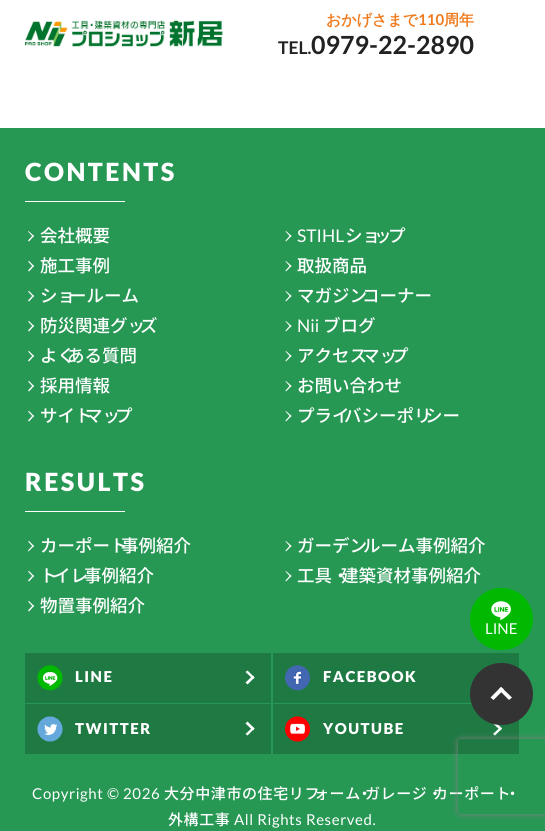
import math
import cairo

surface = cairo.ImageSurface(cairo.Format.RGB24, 545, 831)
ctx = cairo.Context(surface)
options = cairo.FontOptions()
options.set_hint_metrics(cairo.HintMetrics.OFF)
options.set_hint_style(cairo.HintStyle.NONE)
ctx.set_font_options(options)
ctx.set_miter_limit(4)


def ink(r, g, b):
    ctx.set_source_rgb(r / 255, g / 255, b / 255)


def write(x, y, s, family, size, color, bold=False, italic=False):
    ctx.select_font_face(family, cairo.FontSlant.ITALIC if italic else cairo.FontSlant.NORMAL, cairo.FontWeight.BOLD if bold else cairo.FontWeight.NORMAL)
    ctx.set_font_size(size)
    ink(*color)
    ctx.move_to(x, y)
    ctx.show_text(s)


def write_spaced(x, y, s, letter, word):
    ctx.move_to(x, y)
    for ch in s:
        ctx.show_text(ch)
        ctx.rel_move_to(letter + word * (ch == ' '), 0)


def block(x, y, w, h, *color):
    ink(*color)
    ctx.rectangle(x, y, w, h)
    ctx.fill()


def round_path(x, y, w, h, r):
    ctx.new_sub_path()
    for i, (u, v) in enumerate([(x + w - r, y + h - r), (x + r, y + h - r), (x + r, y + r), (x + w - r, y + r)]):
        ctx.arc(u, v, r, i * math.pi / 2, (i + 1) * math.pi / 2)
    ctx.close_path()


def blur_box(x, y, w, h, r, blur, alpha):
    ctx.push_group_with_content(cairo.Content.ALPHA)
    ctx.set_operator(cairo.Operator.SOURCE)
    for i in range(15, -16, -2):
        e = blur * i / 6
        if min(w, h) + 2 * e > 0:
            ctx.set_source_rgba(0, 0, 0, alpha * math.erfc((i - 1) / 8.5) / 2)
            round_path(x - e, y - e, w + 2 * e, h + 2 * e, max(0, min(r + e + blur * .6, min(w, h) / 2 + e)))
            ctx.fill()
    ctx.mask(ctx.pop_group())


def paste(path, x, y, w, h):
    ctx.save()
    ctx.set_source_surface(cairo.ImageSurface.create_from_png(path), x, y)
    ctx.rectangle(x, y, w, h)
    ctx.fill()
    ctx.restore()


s1 = dict(family="WenQuanYi Zen Hei", size=15, color=(239, 123, 31), bold=True)
s2 = dict(family="Lato", size=15, color=(239, 123, 31), bold=True)
s3 = dict(family="Lato", size=17.5, color=(34, 34, 34), bold=True)
s4 = dict(family="Lato", size=25, color=(34, 34, 34), bold=True)
s5 = dict(family="Noto Sans JP Medium", size=17.5, color=(255, 255, 255))
s6 = dict(family="Lato", size=17.5, color=(255, 255, 255))
s7 = dict(family="Lato", size=15, color=(255, 255, 255))

ink(255, 255, 255)
ctx.paint()
paste("pic1.png", 25, 20, 198, 27)
write(326, 25, "おかげさまで", **s1)
write(418, 25, "110", **s2)
write(444, 25, "周年", **s1)
write(278, 54, "TEL.", **s3)
write(311, 54, "0979-22-2890", **s4)
block(0, 128, 545, 703, 39, 151, 84)
ctx.select_font_face("Lato Black")
ink(255, 255, 255)
write_spaced(25, 181, "CONTENTS", 2.5, 0)
block(25, 201, 100, 1, 255, 255, 255)
ctx.new_path()
ctx.move_to(28.5, 231)
ctx.line_to(34, 236)
ctx.line_to(33, 237)
ctx.line_to(28, 231.5)
ctx.close_path()
ctx.fill()
ctx.new_path()
ctx.move_to(33, 235)
ctx.line_to(34, 236)
ctx.line_to(29, 241.5)
ctx.line_to(28, 240.5)
ctx.close_path()
ctx.fill()
write(40, 242, "会社概要", **s5)
ctx.new_path()
ctx.move_to(286, 231)
ctx.line_to(291.5, 236)
ctx.line_to(290.5, 237)
ctx.line_to(285.5, 231.5)
ctx.close_path()
ctx.fill()
ctx.new_path()
ctx.move_to(290.5, 235)
ctx.line_to(291.5, 236)
ctx.line_to(286, 241.5)
ctx.line_to(285.5, 240.5)
ctx.close_path()
ctx.fill()
write(297, 242, "STIHL", **s6)
write(345, 242, "ショ", **s5)
write(374, 242, "ッ", **s5)
write(388, 242, "プ", **s5)
ctx.new_path()
ctx.move_to(29, 261)
ctx.line_to(34, 266)
ctx.line_to(33, 267)
ctx.line_to(28, 261.5)
ctx.close_path()
ctx.fill()
ctx.new_path()
ctx.move_to(33, 265)
ctx.line_to(34, 266)
ctx.line_to(29, 271.5)
ctx.line_to(28, 270.5)
ctx.close_path()
ctx.fill()
write(40, 272, "施工事例", **s5)
ctx.new_path()
ctx.move_to(286, 261)
ctx.line_to(291.5, 266)
ctx.line_to(290.5, 267)
ctx.line_to(285.5, 261.5)
ctx.close_path()
ctx.fill()
ctx.new_path()
ctx.move_to(290.5, 265)
ctx.line_to(291.5, 266)
ctx.line_to(286, 271.5)
ctx.line_to(285.5, 270.5)
ctx.close_path()
ctx.fill()
write(297, 272, "取扱商品", **s5)
ctx.new_path()
ctx.move_to(29, 291)
ctx.line_to(34, 296)
ctx.line_to(33, 297)
ctx.line_to(28, 291.5)
ctx.close_path()
ctx.fill()
ctx.new_path()
ctx.move_to(33, 295)
ctx.line_to(34, 296)
ctx.line_to(29, 301.5)
ctx.line_to(28, 300.5)
ctx.close_path()
ctx.fill()
write(40, 302, "ショ", **s5)
write(69, 302, "ールーム", **s5)
ctx.new_path()
ctx.move_to(286, 291)
ctx.line_to(291.5, 296)
ctx.line_to(290.5, 297)
ctx.line_to(285.5, 291.5)
ctx.close_path()
ctx.fill()
ctx.new_path()
ctx.move_to(290.5, 295)
ctx.line_to(291.5, 296)
ctx.line_to(286, 301.5)
ctx.line_to(285.5, 300.5)
ctx.close_path()
ctx.fill()
write(297, 302, "マガジン", **s5)
write(362, 302, "コーナー", **s5)
ctx.new_path()
ctx.move_to(29, 321)
ctx.line_to(34, 326)
ctx.line_to(33, 327)
ctx.line_to(28, 321.5)
ctx.close_path()
ctx.fill()
ctx.new_path()
ctx.move_to(33, 325)
ctx.line_to(34, 326)
ctx.line_to(29, 331.5)
ctx.line_to(28, 330.5)
ctx.close_path()
ctx.fill()
write(40, 332, "防災関連グッ", **s5)
write(140, 332, "ズ", **s5)
ctx.new_path()
ctx.move_to(286, 321)
ctx.line_to(291.5, 326)
ctx.line_to(290.5, 327)
ctx.line_to(285.5, 321.5)
ctx.close_path()
ctx.fill()
ctx.new_path()
ctx.move_to(290.5, 325)
ctx.line_to(291.5, 326)
ctx.line_to(286, 331.5)
ctx.line_to(285.5, 330.5)
ctx.close_path()
ctx.fill()
write(297, 332, "Nii", **s6)
write(323, 332, "ブログ", **s5)
ctx.new_path()
ctx.move_to(29, 351)
ctx.line_to(34, 356)
ctx.line_to(33, 357)
ctx.line_to(28, 351.5)
ctx.close_path()
ctx.fill()
ctx.new_path()
ctx.move_to(33, 355)
ctx.line_to(34, 356)
ctx.line_to(29, 361.5)
ctx.line_to(28, 360.5)
ctx.close_path()
ctx.fill()
write(40, 362, "よく", **s5)
write(67, 362, "ある質問", **s5)
ctx.new_path()
ctx.move_to(286, 351)
ctx.line_to(291.5, 356)
ctx.line_to(290.5, 357)
ctx.line_to(285.5, 351.5)
ctx.close_path()
ctx.fill()
ctx.new_path()
ctx.move_to(290.5, 355)
ctx.line_to(291.5, 356)
ctx.line_to(286, 361.5)
ctx.line_to(285.5, 360.5)
ctx.close_path()
ctx.fill()
write(297, 362, "アクセス", **s5)
write(362, 362, "マッ", **s5)
write(391, 362, "プ", **s5)
ctx.new_path()
ctx.move_to(29, 381)
ctx.line_to(34, 386)
ctx.line_to(33, 387)
ctx.line_to(28, 381.5)
ctx.close_path()
ctx.fill()
ctx.new_path()
ctx.move_to(33, 385)
ctx.line_to(34, 386)
ctx.line_to(29, 391.5)
ctx.line_to(28, 390.5)
ctx.close_path()
ctx.fill()
write(40, 392, "採用情報", **s5)
ctx.new_path()
ctx.move_to(286, 381)
ctx.line_to(291.5, 386)
ctx.line_to(290.5, 387)
ctx.line_to(285.5, 381.5)
ctx.close_path()
ctx.fill()
ctx.new_path()
ctx.move_to(290.5, 385)
ctx.line_to(291.5, 386)
ctx.line_to(286, 391.5)
ctx.line_to(285.5, 390.5)
ctx.close_path()
ctx.fill()
write(297, 392, "お問い合わせ", **s5)
ctx.new_path()
ctx.move_to(29, 411)
ctx.line_to(34, 416)
ctx.line_to(33, 417)
ctx.line_to(28, 411.5)
ctx.close_path()
ctx.fill()
ctx.new_path()
ctx.move_to(33, 415)
ctx.line_to(34, 416)
ctx.line_to(29, 421.5)
ctx.line_to(28, 420.5)
ctx.close_path()
ctx.fill()
write(40, 422, "サイト", **s5)
write(85, 422, "マッ", **s5)
write(115, 422, "プ", **s5)
ctx.new_path()
ctx.move_to(286, 411)
ctx.line_to(291.5, 416)
ctx.line_to(290.5, 417)
ctx.line_to(285.5, 411.5)
ctx.close_path()
ctx.fill()
ctx.new_path()
ctx.move_to(290.5, 415)
ctx.line_to(291.5, 416)
ctx.line_to(286, 421.5)
ctx.line_to(285.5, 420.5)
ctx.close_path()
ctx.fill()
write(297, 422, "プライ", **s5)
write(344, 422, "バシーポリ", **s5)
write(425, 422, "シー", **s5)
ctx.select_font_face("Lato Black")
ctx.set_font_size(25)
write_spaced(25, 491, "RESULTS", 2.5, 0)
block(25, 511, 100, 1, 255, 255, 255)
ctx.new_path()
ctx.move_to(29, 541)
ctx.line_to(34, 546)
ctx.line_to(33, 547)
ctx.line_to(28, 541.5)
ctx.close_path()
ctx.fill()
ctx.new_path()
ctx.move_to(33, 545)
ctx.line_to(34, 546)
ctx.line_to(28.5, 551.5)
ctx.line_to(28, 550.5)
ctx.close_path()
ctx.fill()
write(40, 552, "カーポート", **s5)
write(121, 552, "事例紹介", **s5)
ctx.new_path()
ctx.move_to(286, 541)
ctx.line_to(291.5, 546)
ctx.line_to(290.5, 547)
ctx.line_to(285.5, 541.5)
ctx.close_path()
ctx.fill()
ctx.new_path()
ctx.move_to(290.5, 545)
ctx.line_to(291.5, 546)
ctx.line_to(286, 551.5)
ctx.line_to(285.5, 550.5)
ctx.close_path()
ctx.fill()
write(297, 552, "ガーデン", **s5)
write(363, 552, "ルーム事例紹介", **s5)
ctx.new_path()
ctx.move_to(29, 571)
ctx.line_to(34, 576)
ctx.line_to(33, 577)
ctx.line_to(28, 571.5)
ctx.close_path()
ctx.fill()
ctx.new_path()
ctx.move_to(33, 575)
ctx.line_to(34, 576)
ctx.line_to(29, 581.5)
ctx.line_to(28, 580.5)
ctx.close_path()
ctx.fill()
write(40, 582, "ト", **s5)
write(53, 582, "イレ", **s5)
write(84, 582, "事例紹介", **s5)
ctx.new_path()
ctx.move_to(286, 571)
ctx.line_to(291.5, 576)
ctx.line_to(290.5, 577)
ctx.line_to(285.5, 571.5)
ctx.close_path()
ctx.fill()
ctx.new_path()
ctx.move_to(290.5, 575)
ctx.line_to(291.5, 576)
ctx.line_to(286, 581.5)
ctx.line_to(285.5, 580.5)
ctx.close_path()
ctx.fill()
write(297, 582, "工具・", **s5)
write(341, 582, "建築資材事例紹介", **s5)
ctx.new_path()
ctx.move_to(29, 601)
ctx.line_to(34, 606)
ctx.line_to(33, 607)
ctx.line_to(28, 601.5)
ctx.close_path()
ctx.fill()
ctx.new_path()
ctx.move_to(33, 605)
ctx.line_to(34, 606)
ctx.line_to(29, 611.5)
ctx.line_to(28, 610.5)
ctx.close_path()
ctx.fill()
write(40, 612, "物置事例紹介", **s5)
block(25, 653, 246, 50, 31, 121, 67)
paste("pic2.png", 37, 665, 26, 26)
ctx.select_font_face("Lato Black")
ctx.set_font_size(15)
ink(255, 255, 255)
write_spaced(75, 682, "LINE", 1.5, 0)
ctx.new_path()
ctx.move_to(247.5, 670.5)
ctx.line_to(254.5, 677.5)
ctx.line_to(253, 679)
ctx.line_to(245.5, 672)
ctx.close_path()
ctx.fill()
ctx.new_path()
ctx.move_to(253, 675.5)
ctx.line_to(254.5, 677.5)
ctx.line_to(247.5, 684.5)
ctx.line_to(245.5, 682.5)
ctx.close_path()
ctx.fill()
block(273, 653, 246, 50, 31, 121, 67)
paste("pic3.png", 285, 665, 25, 26)
ink(255, 255, 255)
write_spaced(323, 682, "FACEBOOK", 1.5, 0)
block(25, 704, 246, 50, 31, 121, 67)
paste("pic4.png", 37, 716, 26, 26)
ink(255, 255, 255)
write_spaced(75, 734, "TWITTER", 1.5, 0)
ctx.new_path()
ctx.move_to(247.5, 721.5)
ctx.line_to(254.5, 728.5)
ctx.line_to(253, 730.5)
ctx.line_to(245.5, 723.5)
ctx.close_path()
ctx.fill()
ctx.new_path()
ctx.move_to(253, 727)
ctx.line_to(254.5, 728.5)
ctx.line_to(247.5, 735.5)
ctx.line_to(245.5, 734)
ctx.close_path()
ctx.fill()
block(273, 704, 246, 50, 31, 121, 67)
paste("pic5.png", 285, 716, 25, 26)
ink(255, 255, 255)
write_spaced(323, 734, "YOUTUBE", 1.5, 0)
ctx.new_path()
ctx.move_to(495, 721.5)
ctx.line_to(502, 728.5)
ctx.line_to(500.5, 730.5)
ctx.line_to(493, 723.5)
ctx.close_path()
ctx.fill()
ctx.new_path()
ctx.move_to(500.5, 727)
ctx.line_to(502, 728.5)
ctx.line_to(495, 735.5)
ctx.line_to(493, 734)
ctx.close_path()
ctx.fill()
ctx.select_font_face("Lato")
write_spaced(32, 799, "Copyright © 2026", 0.6, 0)
ctx.select_font_face("Noto Sans JP Medium")
write_spaced(164, 799, "大分中津市の住宅リフ", 0.6, 0)
write_spaced(314, 799, "ォーム", 0.6, 0)
write_spaced(357, 799, "・", 0.6, 0)
write_spaced(365, 799, "ガレージ・", 0.6, 0)
write_spaced(433, 799, "カーポート", 0.6, 0)
write_spaced(505, 799, "・", 0.6, 0)
write_spaced(168, 825, "外構工事", 0.6, 0)
ctx.select_font_face("Lato")
write_spaced(234, 825, "All Rights Reserved.", 0.6, 0)
ink(0, 185, 0)
round_path(470, 588, 63, 62, 31)
ctx.fill()
paste("pic6.png", 491, 601, 20, 19)
write(485, 634, "LINE", **s7)
ink(51, 51, 51)
round_path(470, 663, 63, 62, 31)
ctx.fill()
ink(255, 255, 255)
ctx.new_path()
ctx.move_to(490.5, 697.5)
ctx.line_to(501, 687)
ctx.line_to(504, 689.5)
ctx.line_to(493.5, 700)
ctx.close_path()
ctx.fill()
ctx.new_path()
ctx.move_to(498.5, 689.5)
ctx.line_to(501, 687)
ctx.line_to(512, 697.5)
ctx.line_to(509, 700)
ctx.close_path()
ctx.fill()
ctx.save()
ctx.set_fill_rule(cairo.FillRule.EVEN_ODD)
ctx.new_path()
ctx.move_to(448, 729)
ctx.line_to(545, 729)
ctx.line_to(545, 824)
ctx.line_to(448, 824)
ctx.close_path()
ctx.move_to(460.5, 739)
ctx.line_to(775.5, 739)
ctx.curve_to(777, 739, 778, 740, 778, 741.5)
ctx.line_to(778, 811.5)
ctx.curve_to(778, 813, 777, 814, 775.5, 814)
ctx.line_to(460.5, 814)
ctx.curve_to(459, 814, 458, 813, 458, 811.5)
ctx.line_to(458, 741.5)
ctx.curve_to(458, 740, 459, 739, 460.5, 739)
ctx.close_path()
ctx.clip()
ink(128, 128, 128)
blur_box(458, 739, 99, 75, 2.5, 3, 1)
ctx.restore()
surface.write_to_png("screenshot.png")
